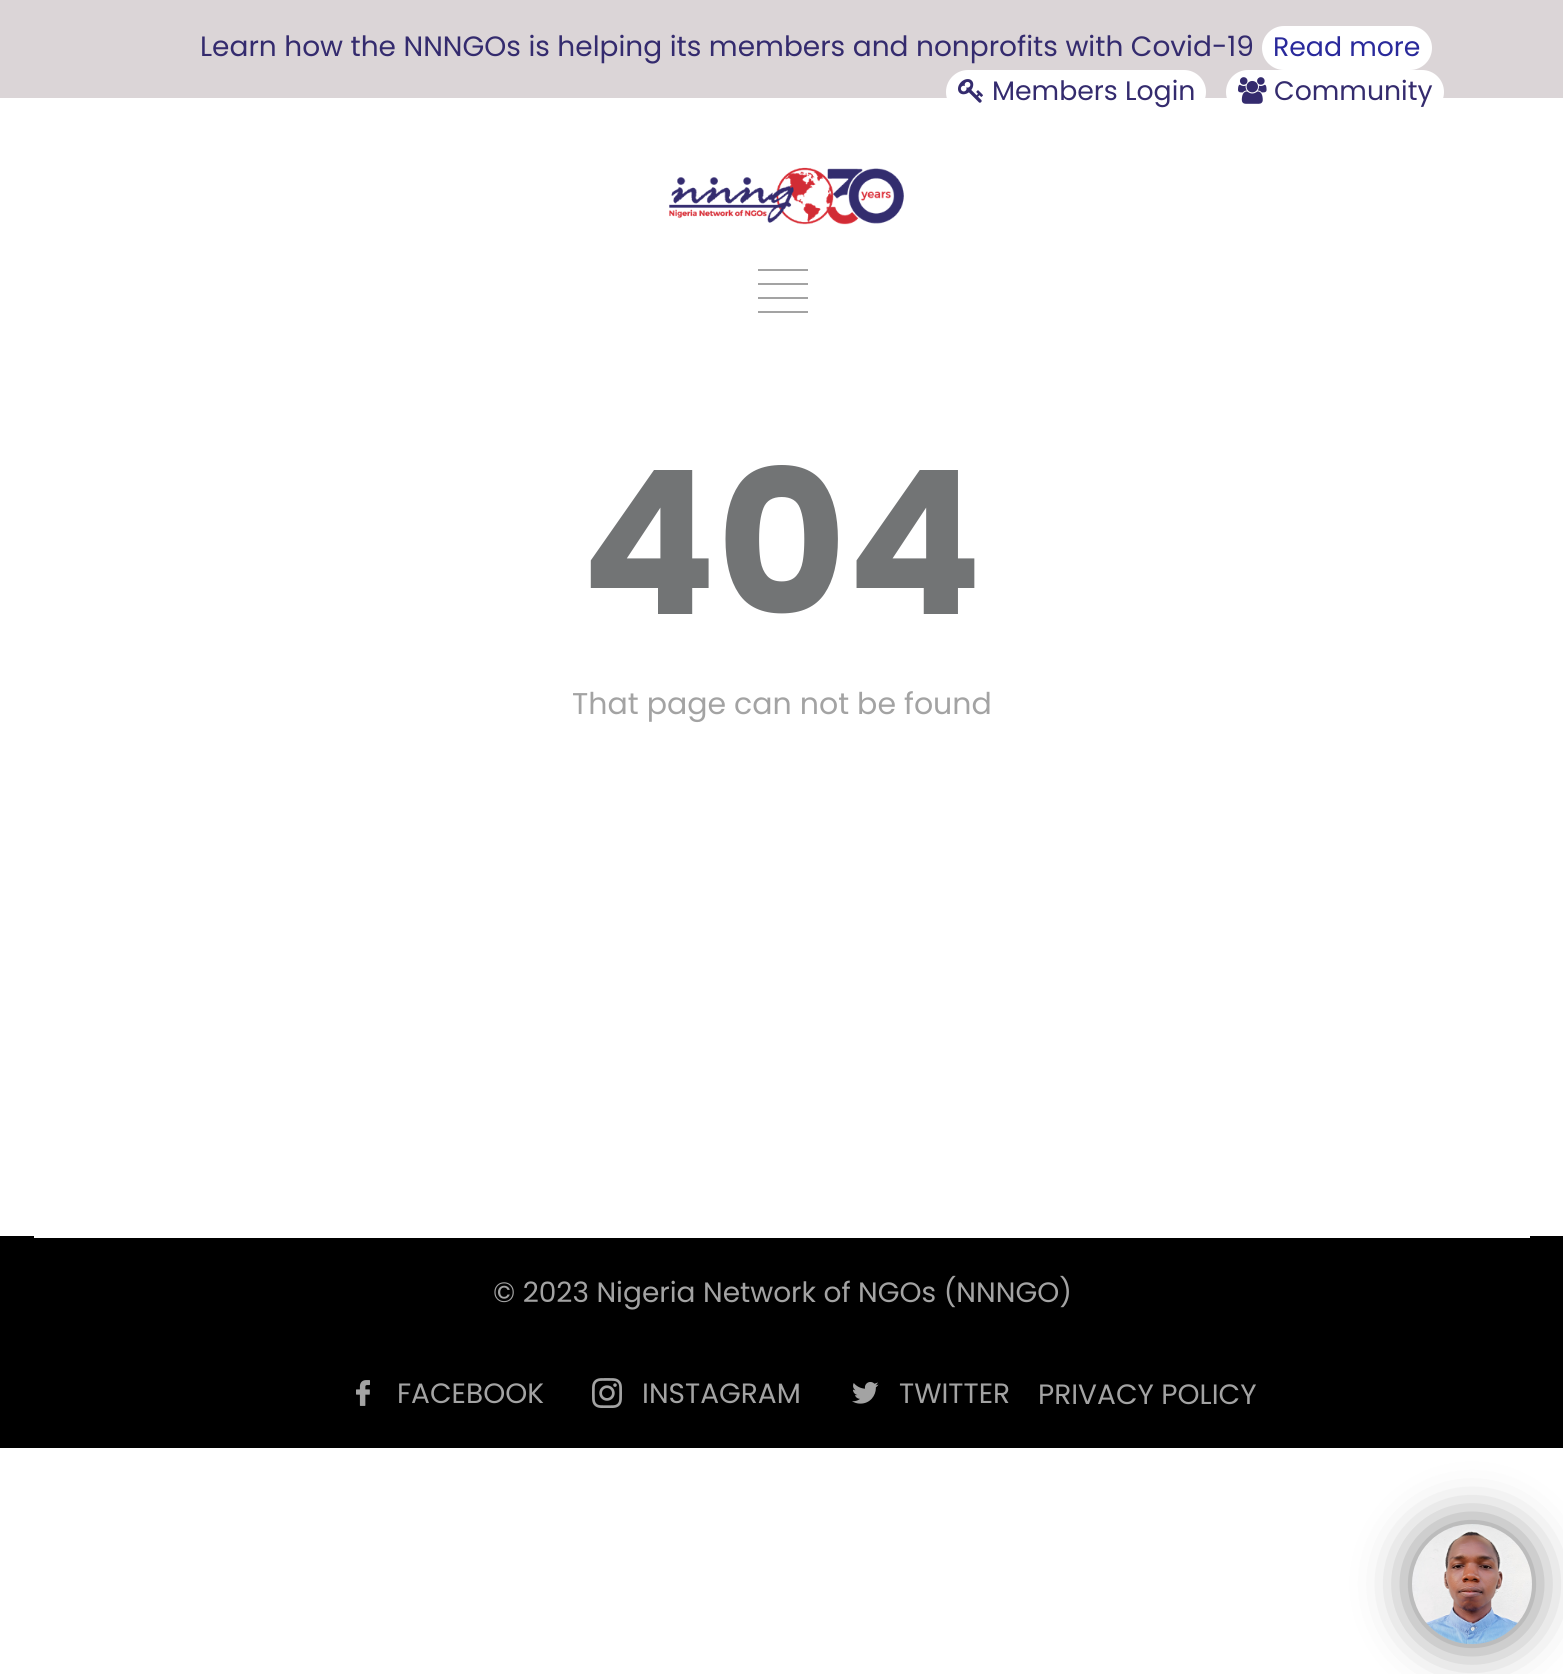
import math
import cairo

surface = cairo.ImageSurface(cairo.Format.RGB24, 1563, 1674)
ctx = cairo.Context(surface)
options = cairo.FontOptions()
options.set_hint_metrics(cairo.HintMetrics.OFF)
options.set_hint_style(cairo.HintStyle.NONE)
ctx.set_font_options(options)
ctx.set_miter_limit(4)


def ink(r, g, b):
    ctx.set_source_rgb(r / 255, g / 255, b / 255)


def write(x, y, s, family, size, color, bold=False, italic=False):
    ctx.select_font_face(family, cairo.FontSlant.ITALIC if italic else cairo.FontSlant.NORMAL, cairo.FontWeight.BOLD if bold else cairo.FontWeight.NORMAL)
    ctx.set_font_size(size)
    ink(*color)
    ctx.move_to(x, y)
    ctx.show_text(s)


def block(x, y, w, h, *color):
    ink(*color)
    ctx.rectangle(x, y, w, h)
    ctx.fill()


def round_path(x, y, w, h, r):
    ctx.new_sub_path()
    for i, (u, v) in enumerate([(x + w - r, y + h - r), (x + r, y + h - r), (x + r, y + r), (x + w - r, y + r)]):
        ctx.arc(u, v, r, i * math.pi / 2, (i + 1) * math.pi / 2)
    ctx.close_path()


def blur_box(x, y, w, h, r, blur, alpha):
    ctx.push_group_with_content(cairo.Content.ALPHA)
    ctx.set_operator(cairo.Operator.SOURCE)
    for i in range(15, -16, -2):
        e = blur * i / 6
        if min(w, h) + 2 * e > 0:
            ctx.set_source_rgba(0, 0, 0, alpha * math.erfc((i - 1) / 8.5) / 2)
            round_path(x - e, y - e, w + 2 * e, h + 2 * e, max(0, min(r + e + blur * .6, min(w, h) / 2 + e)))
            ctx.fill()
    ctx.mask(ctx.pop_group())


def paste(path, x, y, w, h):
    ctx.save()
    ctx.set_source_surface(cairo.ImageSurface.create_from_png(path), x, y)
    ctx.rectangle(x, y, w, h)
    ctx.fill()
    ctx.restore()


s1 = dict(family="Poppins", size=28, color=(52, 43, 110))
s2 = dict(family="Poppins", size=26.75, color=(41, 41, 155))
s3 = dict(family="Poppins", size=26.75, color=(52, 43, 110))
s4 = dict(family="Poppins", size=200, color=(114, 116, 117), bold=True)
s5 = dict(family="Poppins", size=30, color=(163, 163, 163))
s6 = dict(family="Poppins", size=28, color=(163, 163, 163))

ink(255, 255, 255)
ctx.paint()
block(0, 0, 1563, 98, 219, 213, 215)
write(200, 56, "Learn how the NNNGOs is helping its members and nonprofits with Covid-19", **s1)
ink(255, 255, 255)
round_path(1262, 26, 170, 44, 22)
ctx.fill()
write(1273, 56, "Read more", **s2)
ink(255, 255, 255)
round_path(946, 70, 260, 44, 22)
ctx.fill()
paste("pic1.png", 958, 79, 25, 24)
write(992, 100, "Members Login", **s3)
ink(255, 255, 255)
round_path(1226, 70, 218, 44, 22)
ctx.fill()
paste("pic2.png", 1238, 77, 29, 27)
write(1274, 100, "Community", **s3)
paste("pic3.png", 669, 167, 235, 58)
block(758, 269, 50, 2, 163, 163, 163)
block(758, 283, 50, 2, 163, 163, 163)
block(758, 297, 50, 2, 163, 163, 163)
block(758, 311, 50, 2, 163, 163, 163)
write(581, 614, "404", **s4)
write(572, 714, "That page can not be found", **s5)
block(0, 1236, 1563, 212, 0, 0, 0)
block(34, 1236, 1496, 2, 255, 255, 255)
write(493, 1302, "© 2023 Nigeria Network of NGOs (NNNGO)", **s6)
paste("pic4.png", 356, 1380, 14, 26)
write(397, 1403, "FACEBOOK", **s6)
paste("pic5.png", 592, 1378, 30, 30)
write(642, 1403, "INSTAGRAM", **s6)
paste("pic6.png", 852, 1382, 27, 22)
write(899, 1403, "TWITTER", **s6)
write(1038, 1404, "PRIVACY POLICY", **s6)
ink(122, 122, 122)
blur_box(1412, 1524, 120, 120, 60, 25, 1)
paste("pic7.png", 1412, 1524, 120, 120)
surface.write_to_png("screenshot.png")
